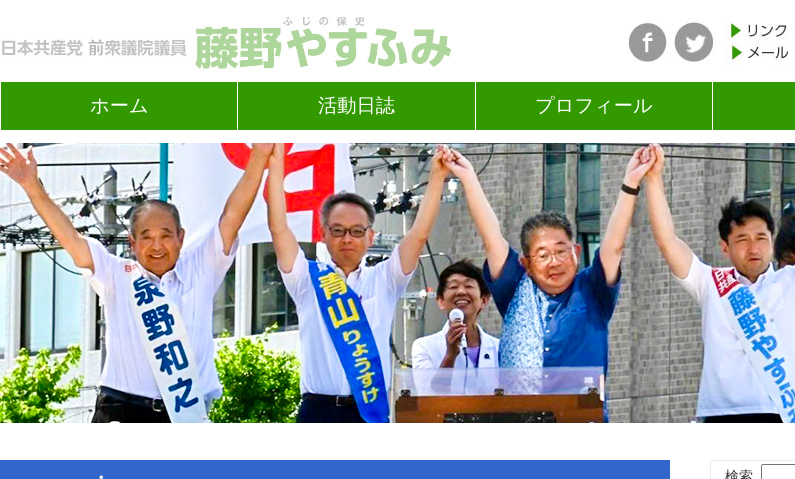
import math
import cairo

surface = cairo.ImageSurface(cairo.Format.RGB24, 795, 479)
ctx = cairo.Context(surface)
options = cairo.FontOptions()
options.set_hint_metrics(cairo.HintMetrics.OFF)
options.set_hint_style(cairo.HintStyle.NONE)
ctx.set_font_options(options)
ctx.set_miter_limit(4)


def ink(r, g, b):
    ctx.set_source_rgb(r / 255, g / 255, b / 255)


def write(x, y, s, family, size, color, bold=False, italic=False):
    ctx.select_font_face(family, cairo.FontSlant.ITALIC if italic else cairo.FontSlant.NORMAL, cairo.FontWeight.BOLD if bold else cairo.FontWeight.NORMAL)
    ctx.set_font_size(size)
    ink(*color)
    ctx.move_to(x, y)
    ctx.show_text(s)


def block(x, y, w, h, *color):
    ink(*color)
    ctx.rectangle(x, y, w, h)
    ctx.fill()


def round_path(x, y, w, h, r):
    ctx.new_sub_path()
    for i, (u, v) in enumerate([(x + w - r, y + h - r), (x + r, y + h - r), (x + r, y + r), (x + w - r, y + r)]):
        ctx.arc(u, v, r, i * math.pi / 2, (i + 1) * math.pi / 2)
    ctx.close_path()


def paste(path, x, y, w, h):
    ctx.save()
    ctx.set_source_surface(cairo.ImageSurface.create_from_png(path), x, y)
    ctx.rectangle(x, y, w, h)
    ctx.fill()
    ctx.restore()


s1 = dict(family="WenQuanYi Zen Hei Medium", size=19.25, color=(255, 255, 255))
s2 = dict(family="WenQuanYi Zen Hei Medium", size=22, color=(255, 255, 255))
s3 = dict(family="WenQuanYi Zen Hei Medium", size=14, color=(51, 51, 51))

ink(255, 255, 255)
ctx.paint()
paste("pic1.png", 1, 17, 455, 55)
paste("pic2.png", 625, 22, 44, 41)
paste("pic3.png", 671, 18, 46, 46)
paste("pic4.png", 725, 16, 64, 24)
paste("pic5.png", 725, 42, 64, 24)
block(1, 82, 794, 48, 51, 153, 0)
write(90, 112, "ホーム", **s1)
block(237, 82, 1, 48, 255, 255, 255)
write(318, 112, "活動日誌", **s1)
block(475, 82, 1, 48, 255, 255, 255)
write(535, 112, "プロフィール", **s1)
block(712, 82, 1, 48, 255, 255, 255)
paste("pic6.png", 0, 143, 795, 280)
block(0, 460, 670, 19, 51, 102, 204)
write(90, 485, "・", **s2)
ctx.rectangle(710.5, 460.5, 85, 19)
ink(238, 238, 238)
ctx.set_line_width(1)
ctx.stroke()
write(725, 481, "検索", **s3)
round_path(761.5, 464.5, 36, 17, 1.5)
ink(118, 118, 118)
ctx.stroke()
surface.write_to_png("screenshot.png")
